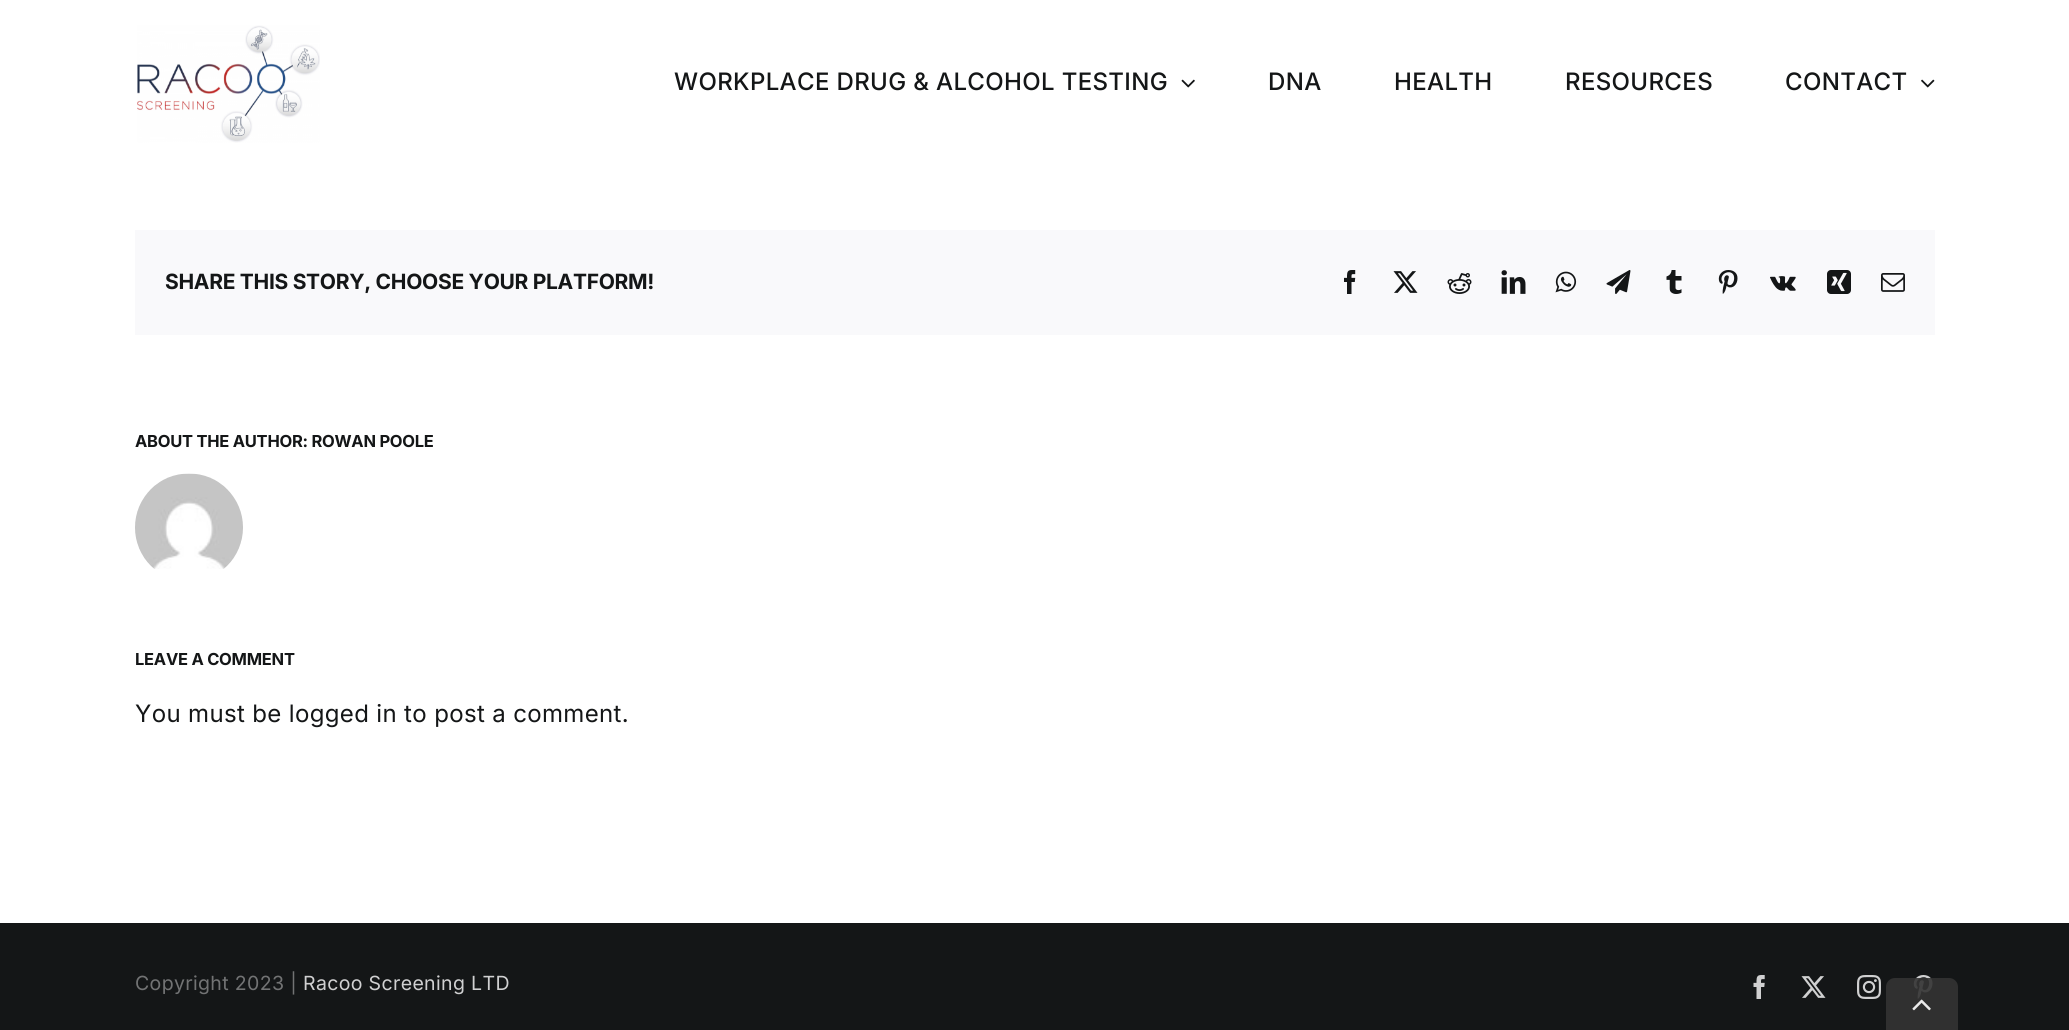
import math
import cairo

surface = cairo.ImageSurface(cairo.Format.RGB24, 2069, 1030)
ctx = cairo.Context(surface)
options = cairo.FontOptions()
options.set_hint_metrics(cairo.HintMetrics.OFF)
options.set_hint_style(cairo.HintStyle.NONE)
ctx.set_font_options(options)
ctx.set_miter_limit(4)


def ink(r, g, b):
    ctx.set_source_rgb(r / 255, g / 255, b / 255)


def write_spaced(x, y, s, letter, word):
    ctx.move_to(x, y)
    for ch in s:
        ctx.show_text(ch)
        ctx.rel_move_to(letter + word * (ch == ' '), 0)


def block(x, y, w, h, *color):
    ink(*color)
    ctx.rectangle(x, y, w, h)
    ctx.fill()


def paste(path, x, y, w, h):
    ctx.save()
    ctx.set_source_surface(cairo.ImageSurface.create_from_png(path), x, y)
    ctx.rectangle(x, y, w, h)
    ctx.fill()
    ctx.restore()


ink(255, 255, 255)
ctx.paint()
paste("pic1.png", 137, 25, 183, 118)
ctx.select_font_face("Inter Medium")
ctx.set_font_size(24)
ink(20, 22, 23)
write_spaced(674, 90, "WORKPLACE DRUG & ALCOHOL TESTING", 0.35, 0)
paste("pic2.png", 1181, 79, 14, 9)
write_spaced(1268, 90, "DNA", 0.35, 0)
write_spaced(1394, 90, "HEALTH", 0.35, 0)
write_spaced(1565, 90, "RESOURCES", 0.35, 0)
write_spaced(1785, 90, "CONTACT", 0.35, 0)
paste("pic3.png", 1921, 79, 14, 9)
block(135, 230, 1800, 105, 249, 249, 251)
ctx.select_font_face("Inter", cairo.FontSlant.NORMAL, cairo.FontWeight.BOLD)
ctx.set_font_size(21)
ink(20, 22, 23)
write_spaced(165, 289, "SHARE THIS STORY, CHOOSE YOUR PLATFORM!", -0.3, 0)
paste("pic4.png", 1344, 270, 12, 24)
paste("pic5.png", 1393, 271, 25, 22)
paste("pic6.png", 1447, 273, 25, 21)
paste("pic7.png", 1501, 270, 25, 24)
paste("pic8.png", 1555, 271, 22, 22)
paste("pic9.png", 1606, 270, 25, 24)
paste("pic10.png", 1666, 270, 16, 24)
paste("pic11.png", 1718, 270, 20, 24)
paste("pic12.png", 1770, 276, 26, 15)
paste("pic13.png", 1827, 270, 24, 24)
paste("pic14.png", 1881, 273, 24, 19)
ctx.set_font_size(16.5)
write_spaced(135, 447, "ABOUT THE AUTHOR: ROWAN POOLE", -0.25, 0)
paste("pic15.png", 135, 473, 108, 96)
write_spaced(135, 665, "LEAVE A COMMENT", -0.25, 0)
ctx.select_font_face("Inter")
ctx.set_font_size(24)
write_spaced(135, 722, "You must be logged in to post a comment.", 0.35, 0)
block(0, 923, 2069, 107, 20, 22, 23)
ctx.set_font_size(19.5)
ink(114, 115, 116)
write_spaced(135, 990, "Copyright 2023 |", 0.35, 0)
ink(208, 208, 209)
write_spaced(303, 990, "Racoo Screening LTD", 0.35, 0)
paste("pic16.png", 1753, 975, 12, 24)
paste("pic17.png", 1801, 976, 25, 22)
paste("pic18.png", 1857, 975, 24, 24)
paste("pic19.png", 1913, 975, 20, 24)
ctx.set_source_rgba(0.2, 0.2, 0.2, 0.9)
ctx.new_path()
ctx.move_to(1895, 978)
ctx.line_to(1949, 978)
ctx.curve_to(1954, 978, 1958, 982, 1958, 987)
ctx.line_to(1958, 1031)
ctx.line_to(1886, 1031)
ctx.line_to(1886, 987)
ctx.curve_to(1886, 982, 1890, 978, 1895, 978)
ctx.close_path()
ctx.fill()
paste("pic20.png", 1912, 999, 19, 12)
surface.write_to_png("screenshot.png")
